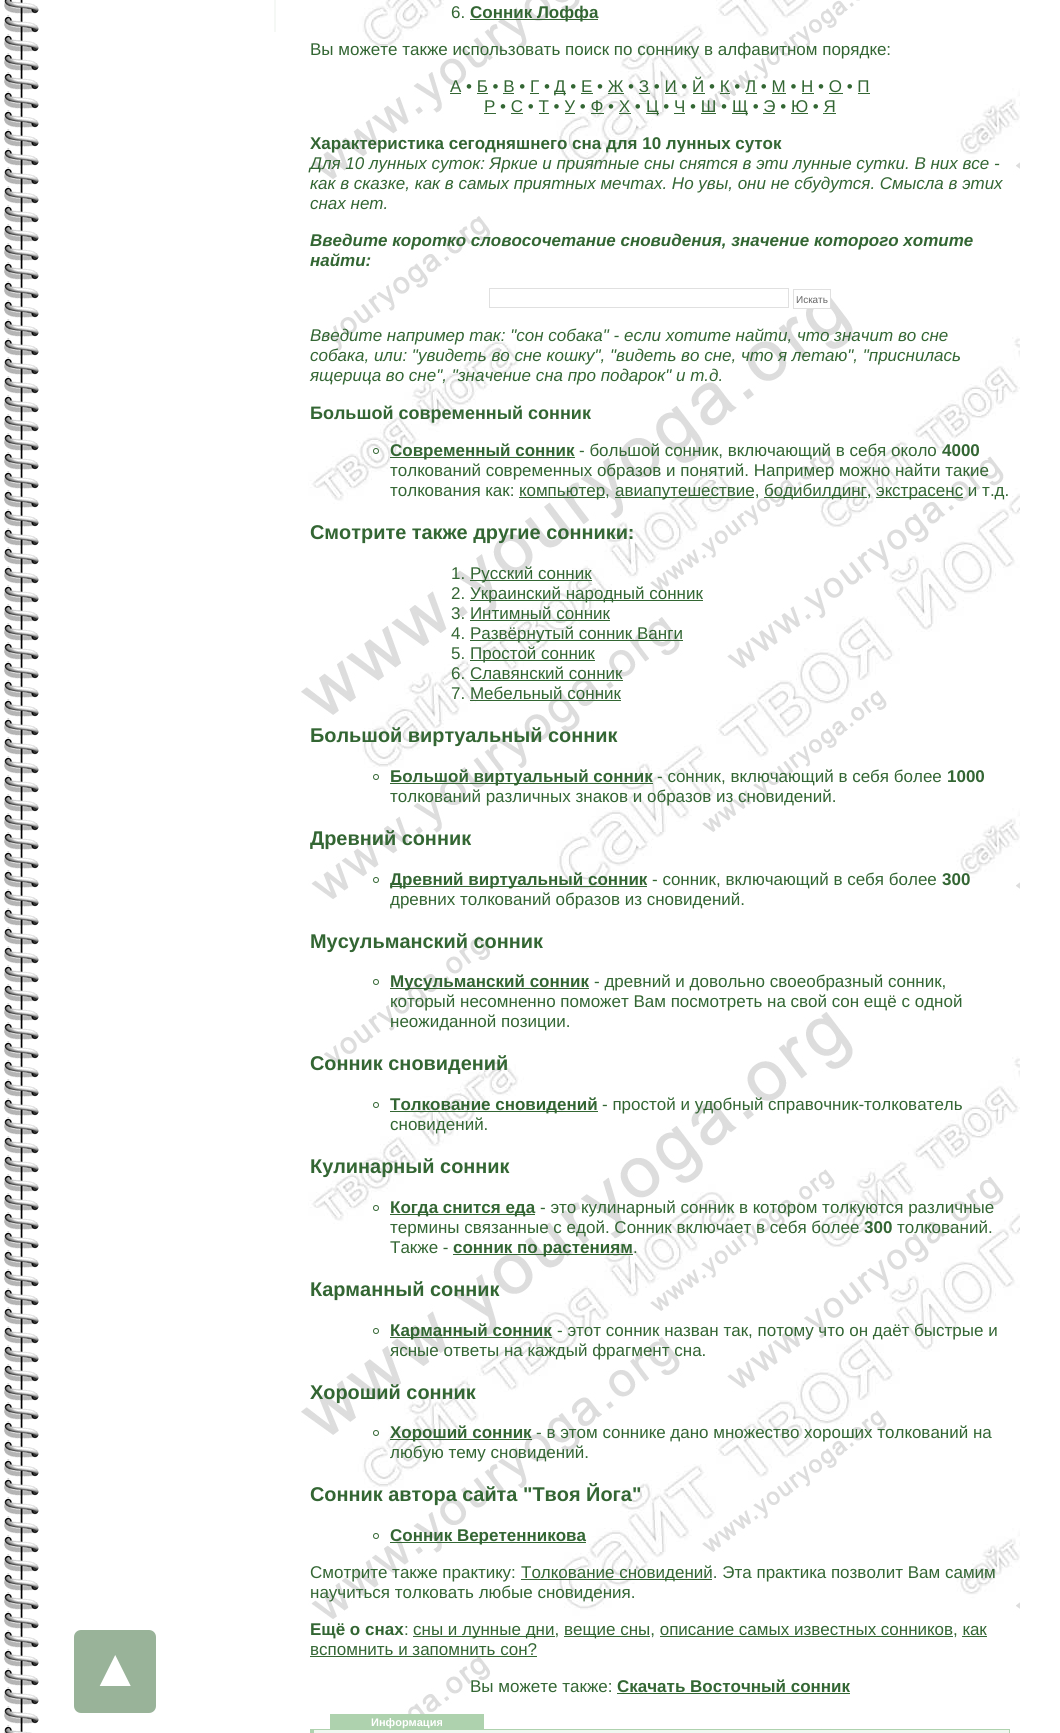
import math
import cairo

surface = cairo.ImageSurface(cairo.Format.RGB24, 1060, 1733)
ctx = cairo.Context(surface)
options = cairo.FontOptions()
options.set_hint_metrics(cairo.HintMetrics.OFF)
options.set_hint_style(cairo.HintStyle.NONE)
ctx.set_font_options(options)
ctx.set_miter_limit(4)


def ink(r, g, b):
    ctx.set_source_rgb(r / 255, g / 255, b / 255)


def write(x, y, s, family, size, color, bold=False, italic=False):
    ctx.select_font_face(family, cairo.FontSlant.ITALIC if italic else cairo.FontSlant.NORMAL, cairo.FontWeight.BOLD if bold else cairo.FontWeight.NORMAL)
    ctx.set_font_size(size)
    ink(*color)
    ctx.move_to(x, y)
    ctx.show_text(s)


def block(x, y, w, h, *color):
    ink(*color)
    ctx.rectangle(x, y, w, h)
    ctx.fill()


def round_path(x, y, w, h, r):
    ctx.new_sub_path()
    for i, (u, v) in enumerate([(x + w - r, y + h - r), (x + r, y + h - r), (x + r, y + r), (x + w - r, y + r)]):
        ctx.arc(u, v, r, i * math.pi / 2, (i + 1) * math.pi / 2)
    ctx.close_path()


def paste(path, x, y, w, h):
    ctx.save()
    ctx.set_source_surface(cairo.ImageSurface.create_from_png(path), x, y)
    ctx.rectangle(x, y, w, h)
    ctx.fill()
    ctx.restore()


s1 = dict(family="Liberation Sans", size=17, color=(51, 102, 51))
s2 = dict(family="Liberation Sans", size=17, color=(51, 102, 51), bold=True)
s3 = dict(family="Liberation Sans", size=17, color=(51, 102, 51), italic=True)
s4 = dict(family="Liberation Sans", size=17, color=(51, 102, 51), bold=True, italic=True)
s5 = dict(family="Liberation Sans", size=10, color=(102, 102, 102))
s6 = dict(family="Liberation Sans", size=18, color=(51, 102, 51), bold=True)
s7 = dict(family="Liberation Sans", size=19.9, color=(51, 102, 51), bold=True)
s8 = dict(family="Liberation Sans", size=53, color=(255, 255, 255))
s9 = dict(family="Liberation Sans", size=11, color=(255, 255, 255), bold=True)

ink(255, 255, 255)
ctx.paint()
paste("pic1.png", 4, 0, 35, 1733)
block(274, 0, 2, 32, 245, 248, 245)
paste("pic2.png", 301, 0, 719, 1733)
write(451, 18, "6.", **s1)
block(470, 19, 128, 1, 51, 102, 51)
write(470, 18, "Сонник Лоффа", **s2)
write(310, 55, "Вы можете также использовать поиск по соннику в алфавитном порядке:", **s1)
write(450, 92, "А • Б • В • Г •", **s1)
block(450, 93, 11, 1, 51, 102, 51)
block(554, 93, 12, 1, 51, 102, 51)
write(554, 92, "Д • Е • Ж • З • И • Й • К • Л • М • Н • О • П", **s1)
block(477, 93, 11, 1, 51, 102, 51)
block(503, 93, 11, 1, 51, 102, 51)
block(530, 93, 9, 1, 51, 102, 51)
block(581, 93, 12, 1, 51, 102, 51)
block(608, 93, 16, 1, 51, 102, 51)
block(639, 93, 11, 1, 51, 102, 51)
block(665, 93, 12, 1, 51, 102, 51)
block(693, 93, 12, 1, 51, 102, 51)
block(720, 93, 10, 1, 51, 102, 51)
block(746, 93, 11, 1, 51, 102, 51)
block(772, 93, 14, 1, 51, 102, 51)
block(802, 93, 12, 1, 51, 102, 51)
block(829, 93, 14, 1, 51, 102, 51)
block(858, 93, 12, 1, 51, 102, 51)
write(484, 112, "Р • С • Т • У • Ф • Х •", **s1)
block(484, 113, 12, 1, 51, 102, 51)
block(646, 113, 13, 1, 51, 102, 51)
write(646, 112, "Ц • Ч • Ш •", **s1)
block(732, 113, 16, 1, 51, 102, 51)
write(732, 112, "Щ • Э • Ю • Я", **s1)
block(511, 113, 12, 1, 51, 102, 51)
block(539, 113, 10, 1, 51, 102, 51)
block(565, 113, 10, 1, 51, 102, 51)
block(591, 113, 13, 1, 51, 102, 51)
block(619, 113, 12, 1, 51, 102, 51)
block(674, 113, 11, 1, 51, 102, 51)
block(701, 113, 15, 1, 51, 102, 51)
block(763, 113, 12, 1, 51, 102, 51)
block(791, 113, 17, 1, 51, 102, 51)
block(823, 113, 13, 1, 51, 102, 51)
write(310, 149, "Характеристика сегодняшнего сна для 10 лунных суток", **s2)
write(310, 169, "Для 10 лунных суток: Яркие и приятные сны снятся в эти лунные сутки. В них все -", **s3)
write(310, 189, "как в сказке, как в самых приятных мечтах. Но увы, они не сбудутся. Смысла в этих", **s3)
write(310, 209, "снах нет.", **s3)
write(310, 246, "Введите коротко словосочетание сновидения, значение которого хотите", **s4)
write(310, 266, "найти:", **s4)
ctx.rectangle(489.5, 288.5, 299, 19)
ink(224, 224, 224)
ctx.set_line_width(1)
ctx.stroke()
block(807, 292, 23, 16, 255, 255, 255)
ctx.rectangle(793.5, 289.5, 37, 19)
ink(224, 224, 224)
ctx.stroke()
write(796, 303, "Искать", **s5)
write(310, 341, "Введите например так: \"сон собака\" - если хотите найти, что значит во сне", **s3)
write(310, 361, "собака, или: \"увидеть во сне кошку\", \"видеть во сне, что я летаю\", \"приснилась", **s3)
write(310, 381, "ящерица во сне\", \"значение сна про подарок\" и т.д.", **s3)
write(310, 419, "Большой современный сонник", **s6)
ctx.new_path()
ctx.arc(376, 451, 2.5, 0, 2 * math.pi)
ctx.stroke()
block(390, 457, 185, 1, 51, 102, 51)
write(390, 456, "Современный сонник", **s2)
write(579, 456, "- большой сонник, включающий в себя около", **s1)
write(942, 456, "4000", **s2)
write(390, 476, "толкований современных образов и понятий. Например можно найти такие", **s1)
write(390, 496, "толкования как:", **s1)
block(519, 497, 86, 1, 51, 102, 51)
write(519, 496, "компьютер,", **s1)
block(615, 497, 139, 1, 51, 102, 51)
write(615, 496, "авиапутешествие,", **s1)
block(764, 497, 103, 1, 51, 102, 51)
write(764, 496, "бодибилдинг,", **s1)
block(876, 497, 87, 1, 51, 102, 51)
write(876, 496, "экстрасенс и т.д.", **s1)
write(310, 539, "Смотрите также другие сонники:", **s7)
write(451, 579, "1.", **s1)
block(470, 580, 122, 1, 51, 102, 51)
write(470, 579, "Русский сонник", **s1)
write(451, 599, "2.", **s1)
block(470, 600, 233, 1, 51, 102, 51)
write(470, 599, "Украинский народный сонник", **s1)
write(451, 619, "3. Интимный сонник", **s1)
block(470, 620, 140, 1, 51, 102, 51)
write(451, 639, "4.", **s1)
block(470, 640, 213, 1, 51, 102, 51)
write(470, 639, "Развёрнутый сонник Ванги", **s1)
write(451, 659, "5.", **s1)
block(470, 660, 125, 1, 51, 102, 51)
write(470, 659, "Простой сонник", **s1)
write(451, 679, "6. Славянский сонник", **s1)
block(470, 680, 153, 1, 51, 102, 51)
write(451, 699, "7. Мебельный сонник", **s1)
block(470, 700, 151, 1, 51, 102, 51)
write(310, 742, "Большой виртуальный сонник", **s7)
ctx.new_path()
ctx.arc(376, 777, 2.5, 0, 2 * math.pi)
ctx.stroke()
block(390, 783, 263, 1, 51, 102, 51)
write(390, 782, "Большой виртуальный сонник", **s2)
write(657, 782, "- сонник, включающий в себя более", **s1)
write(947, 782, "1000", **s2)
write(390, 802, "толкований различных знаков и образов из сновидений.", **s1)
write(310, 845, "Древний сонник", **s7)
ctx.new_path()
ctx.arc(376, 880, 2.5, 0, 2 * math.pi)
ctx.stroke()
block(390, 886, 257, 1, 51, 102, 51)
write(390, 885, "Древний виртуальный сонник", **s2)
write(652, 885, "- сонник, включающий в себя более", **s1)
write(942, 885, "300", **s2)
write(390, 905, "древних толкований образов из сновидений.", **s1)
write(310, 948, "Мусульманский сонник", **s7)
ctx.new_path()
ctx.arc(376, 982, 2.5, 0, 2 * math.pi)
ctx.stroke()
block(390, 988, 199, 1, 51, 102, 51)
write(390, 987, "Мусульманский сонник", **s2)
write(594, 987, "- древний и довольно своеобразный сонник,", **s1)
write(390, 1007, "который несомненно поможет Вам посмотреть на свой сон ещё с одной", **s1)
write(390, 1027, "неожиданной позиции.", **s1)
write(310, 1070, "Сонник сновидений", **s7)
ctx.new_path()
ctx.arc(376, 1105, 2.5, 0, 2 * math.pi)
ctx.stroke()
block(390, 1111, 208, 1, 51, 102, 51)
write(390, 1110, "Толкование сновидений", **s2)
write(602, 1110, "- простой и удобный справочник-толкователь", **s1)
write(390, 1130, "сновидений.", **s1)
write(310, 1173, "Кулинарный сонник", **s7)
ctx.new_path()
ctx.arc(376, 1208, 2.5, 0, 2 * math.pi)
ctx.stroke()
block(390, 1214, 145, 1, 51, 102, 51)
write(390, 1213, "Когда снится еда", **s2)
write(540, 1213, "- это кулинарный сонник в котором толкуются различные", **s1)
write(390, 1233, "термины связанные с едой. Сонник включает в себя более", **s1)
write(864, 1233, "300", **s2)
write(897, 1233, "толкований.", **s1)
write(390, 1253, "Также -", **s1)
block(453, 1254, 180, 1, 51, 102, 51)
write(453, 1253, "сонник по растениям", **s2)
write(633, 1253, ".", **s1)
write(310, 1296, "Карманный сонник", **s7)
ctx.new_path()
ctx.arc(376, 1331, 2.5, 0, 2 * math.pi)
ctx.stroke()
block(390, 1337, 162, 1, 51, 102, 51)
write(390, 1336, "Карманный сонник", **s2)
write(557, 1336, "- этот сонник назван так, потому что он даёт быстрые и", **s1)
write(390, 1356, "ясные ответы на каждый фрагмент сна.", **s1)
write(310, 1399, "Хороший сонник", **s7)
ctx.new_path()
ctx.arc(376, 1433, 2.5, 0, 2 * math.pi)
ctx.stroke()
block(390, 1439, 142, 1, 51, 102, 51)
write(390, 1438, "Хороший сонник", **s2)
write(536, 1438, "- в этом соннике дано множество хороших толкований на", **s1)
write(390, 1458, "любую тему сновидений.", **s1)
write(310, 1501, "Сонник автора сайта \"Твоя Йога\"", **s7)
ctx.new_path()
ctx.arc(376, 1536, 2.5, 0, 2 * math.pi)
ctx.stroke()
block(390, 1542, 196, 1, 51, 102, 51)
write(390, 1541, "Сонник Веретенникова", **s2)
write(310, 1578, "Смотрите также практику:", **s1)
block(521, 1579, 191, 1, 51, 102, 51)
write(521, 1578, "Толкование сновидений. Эта практика позволит Вам самим", **s1)
write(310, 1598, "научиться толковать любые сновидения.", **s1)
write(310, 1635, "Ещё о снах", **s2)
write(404, 1635, ":", **s1)
block(413, 1636, 142, 1, 51, 102, 51)
write(413, 1635, "сны и лунные дни,", **s1)
block(564, 1636, 86, 1, 51, 102, 51)
write(564, 1635, "вещие сны, описание самых известных сонников, как", **s1)
block(660, 1636, 293, 1, 51, 102, 51)
write(310, 1655, "вспомнить и запомнить сон?", **s1)
block(962, 1636, 25, 1, 51, 102, 51)
block(310, 1656, 227, 1, 51, 102, 51)
block(314, 1730, 695, 3, 240, 247, 240)
block(310, 1729, 700, 1, 174, 210, 174)
block(1009, 1729, 1, 4, 174, 210, 174)
block(310, 1730, 4, 3, 174, 210, 174)
ink(153, 179, 153)
round_path(74, 1630, 82, 83, 7)
ctx.fill()
write(89, 1686, "▲", **s8)
write(470, 1692, "Вы можете также:", **s1)
write(617, 1692, "Скачать Восточный сонник", **s2)
block(617, 1693, 233, 1, 51, 102, 51)
block(330, 1714, 154, 15, 174, 210, 174)
write(371, 1726, "Информация", **s9)
surface.write_to_png("screenshot.png")
